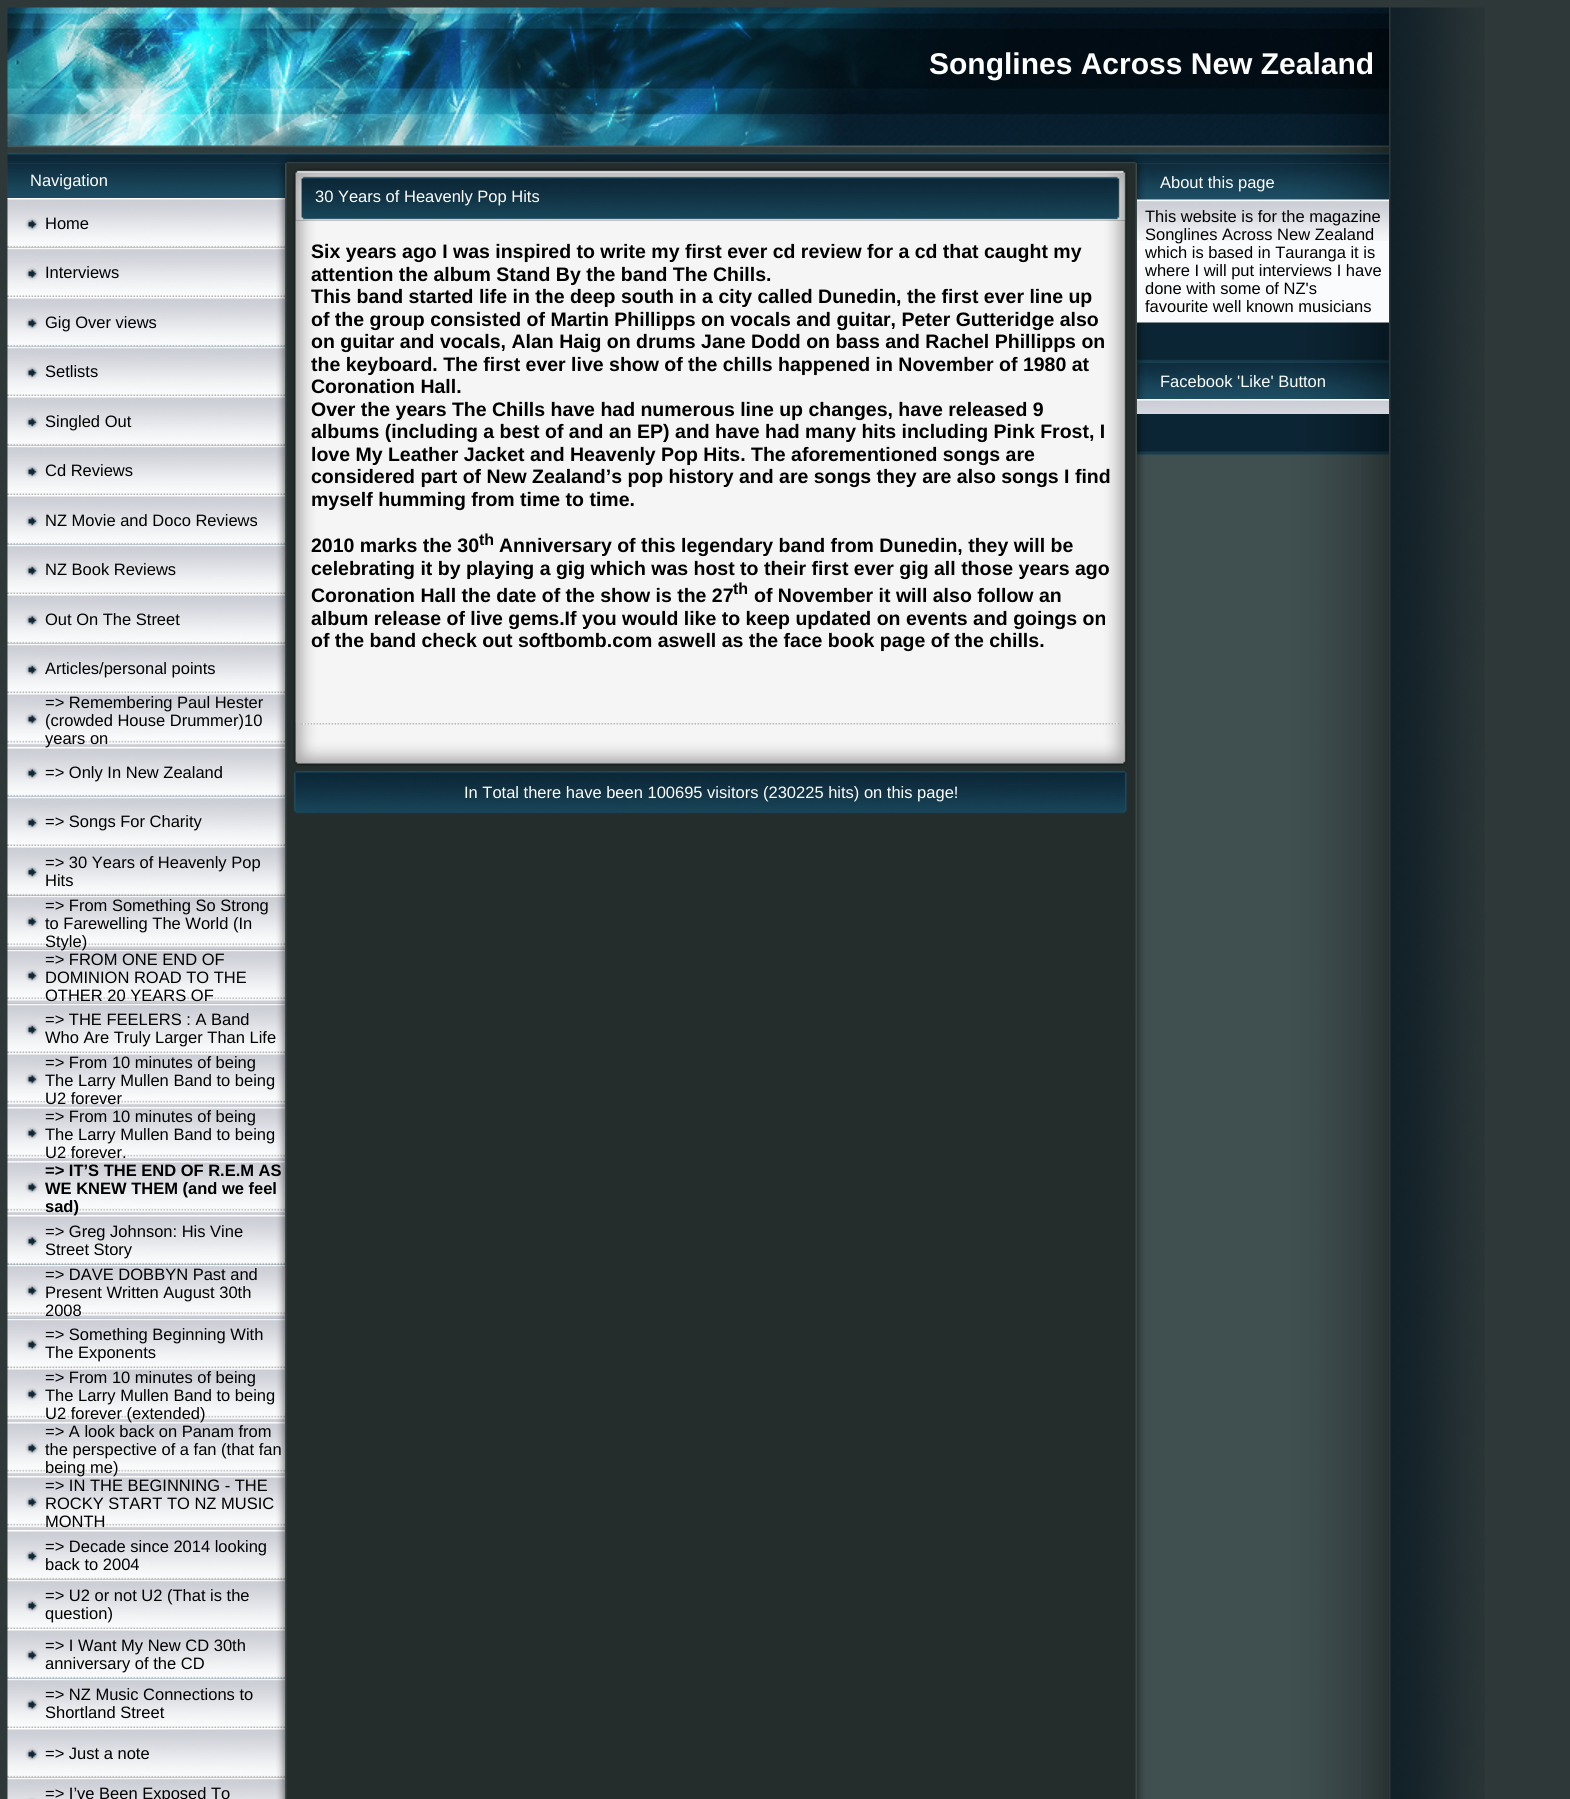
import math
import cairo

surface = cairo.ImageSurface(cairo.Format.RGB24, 1570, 1799)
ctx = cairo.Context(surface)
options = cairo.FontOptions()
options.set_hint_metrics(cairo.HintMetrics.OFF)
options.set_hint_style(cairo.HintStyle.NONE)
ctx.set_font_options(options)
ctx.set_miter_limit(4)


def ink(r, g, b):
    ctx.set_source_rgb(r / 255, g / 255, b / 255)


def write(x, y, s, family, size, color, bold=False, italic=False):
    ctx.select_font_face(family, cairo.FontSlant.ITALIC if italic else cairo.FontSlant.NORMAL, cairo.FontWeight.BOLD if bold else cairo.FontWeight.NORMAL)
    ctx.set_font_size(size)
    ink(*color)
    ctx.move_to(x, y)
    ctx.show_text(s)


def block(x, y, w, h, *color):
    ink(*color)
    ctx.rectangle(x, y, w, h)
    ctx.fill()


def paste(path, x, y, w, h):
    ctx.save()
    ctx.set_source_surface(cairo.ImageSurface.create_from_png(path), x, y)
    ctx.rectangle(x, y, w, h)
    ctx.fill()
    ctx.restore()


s1 = dict(family="Liberation Sans", size=30, color=(255, 255, 255), bold=True)
s2 = dict(family="Liberation Sans", size=16.5, color=(255, 255, 255))
s3 = dict(family="Liberation Sans", size=16.5, color=(0, 0, 0))
s4 = dict(family="Liberation Sans", size=16.5, color=(0, 0, 0), bold=True)
s5 = dict(family="Liberation Sans", size=19.5, color=(0, 0, 0), bold=True)
s6 = dict(family="Liberation Sans", size=16, color=(0, 0, 0), bold=True)

ink(46, 56, 57)
ctx.paint()
paste("pic1.png", 7, 7, 1382, 157)
write(929, 74, "Songlines Across New Zealand", **s1)
paste("pic2.png", 7, 163, 278, 1636)
paste("pic3.png", 7, 163, 278, 35)
write(30, 186, "Navigation", **s2)
paste("pic4.png", 7, 198, 278, 50)
write(45, 229, "Home", **s3)
paste("pic5.png", 7, 247, 278, 50)
write(45, 278, "Interviews", **s3)
paste("pic4.png", 7, 297, 278, 50)
write(45, 328, "Gig Over views", **s3)
paste("pic5.png", 7, 346, 278, 50)
write(45, 377, "Setlists", **s3)
paste("pic4.png", 7, 396, 278, 50)
write(45, 427, "Singled Out", **s3)
paste("pic5.png", 7, 445, 278, 50)
write(45, 476, "Cd Reviews", **s3)
paste("pic4.png", 7, 495, 278, 50)
write(45, 526, "NZ Movie and Doco Reviews", **s3)
paste("pic5.png", 7, 544, 278, 50)
write(45, 575, "NZ Book Reviews", **s3)
paste("pic4.png", 7, 594, 278, 50)
write(45, 625, "Out On The Street", **s3)
paste("pic5.png", 7, 643, 278, 50)
write(45, 674, "Articles/personal points", **s3)
paste("pic6.png", 7, 693, 278, 54)
write(45, 708, "=> Remembering Paul Hester", **s3)
write(45, 726, "(crowded House Drummer)10", **s3)
paste("pic4.png", 7, 747, 278, 50)
write(45, 744, "years on", **s3)
write(45, 778, "=> Only In New Zealand", **s3)
paste("pic5.png", 7, 796, 278, 50)
write(45, 827, "=> Songs For Charity", **s3)
paste("pic4.png", 7, 846, 278, 50)
write(45, 868, "=> 30 Years of Heavenly Pop", **s3)
write(45, 886, "Hits", **s3)
paste("pic7.png", 7, 895, 278, 55)
write(45, 911, "=> From Something So Strong", **s3)
write(45, 929, "to Farewelling The World (In", **s3)
paste("pic8.png", 7, 949, 278, 55)
write(45, 947, "Style)", **s3)
write(45, 965, "=> FROM ONE END OF", **s3)
write(45, 983, "DOMINION ROAD TO THE", **s3)
write(45, 1001, "OTHER 20 YEARS OF", **s3)
paste("pic9.png", 7, 1003, 278, 50)
write(45, 1025, "=> THE FEELERS : A Band", **s3)
write(45, 1043, "Who Are Truly Larger Than Life", **s3)
paste("pic10.png", 7, 1053, 278, 54)
write(45, 1068, "=> From 10 minutes of being", **s3)
write(45, 1086, "The Larry Mullen Band to being", **s3)
write(45, 1104, "U2 forever", **s3)
paste("pic11.png", 7, 1107, 278, 54)
write(45, 1122, "=> From 10 minutes of being", **s3)
write(45, 1140, "The Larry Mullen Band to being", **s3)
write(45, 1158, "U2 forever.", **s3)
paste("pic12.png", 7, 1161, 278, 54)
write(45, 1176, "=> IT’S THE END OF R.E.M AS", **s4)
write(45, 1194, "WE KNEW THEM (and we feel", **s4)
paste("pic4.png", 7, 1215, 278, 50)
write(45, 1212, "sad)", **s4)
write(45, 1237, "=> Greg Johnson: His Vine", **s3)
write(45, 1255, "Street Story", **s3)
paste("pic13.png", 7, 1264, 278, 55)
write(45, 1280, "=> DAVE DOBBYN Past and", **s3)
write(45, 1298, "Present Written August 30th", **s3)
write(45, 1316, "2008", **s3)
paste("pic9.png", 7, 1318, 278, 50)
write(45, 1340, "=> Something Beginning With", **s3)
write(45, 1358, "The Exponents", **s3)
paste("pic10.png", 7, 1368, 278, 54)
write(45, 1383, "=> From 10 minutes of being", **s3)
write(45, 1401, "The Larry Mullen Band to being", **s3)
paste("pic14.png", 7, 1422, 278, 54)
write(45, 1419, "U2 forever (extended)", **s3)
write(45, 1437, "=> A look back on Panam from", **s3)
write(45, 1455, "the perspective of a fan (that fan", **s3)
paste("pic15.png", 7, 1476, 278, 54)
write(45, 1473, "being me)", **s3)
write(45, 1491, "=> IN THE BEGINNING - THE", **s3)
write(45, 1509, "ROCKY START TO NZ MUSIC", **s3)
write(45, 1527, "MONTH", **s3)
paste("pic4.png", 7, 1530, 278, 50)
write(45, 1552, "=> Decade since 2014 looking", **s3)
write(45, 1570, "back to 2004", **s3)
paste("pic5.png", 7, 1579, 278, 50)
write(45, 1601, "=> U2 or not U2 (That is the", **s3)
write(45, 1619, "question)", **s3)
paste("pic4.png", 7, 1629, 278, 50)
write(45, 1651, "=> I Want My New CD 30th", **s3)
write(45, 1669, "anniversary of the CD", **s3)
paste("pic5.png", 7, 1678, 278, 50)
write(45, 1700, "=> NZ Music Connections to", **s3)
write(45, 1718, "Shortland Street", **s3)
paste("pic4.png", 7, 1728, 278, 50)
write(45, 1759, "=> Just a note", **s3)
paste("pic16.png", 7, 1777, 278, 22)
write(45, 1799, "=> I’ve Been Exposed To", **s3)
paste("pic17.png", 285, 163, 852, 1636)
paste("pic18.png", 285, 163, 852, 58)
write(315, 202, "30 Years of Heavenly Pop Hits", **s2)
paste("pic19.png", 293, 220, 834, 503)
write(311, 258, "Six years ago I was inspired to write my first ever cd review for a cd that caught my", **s5)
write(311, 281, "attention the album Stand By the band The Chills.", **s5)
ctx.save()
ctx.rectangle(311, 221, 801, 502)
ctx.clip()
write(311, 303, "This band started life in the deep south in a city called Dunedin, the first ever line up", **s5)
ctx.restore()
write(311, 326, "of the group consisted of Martin Phillipps on vocals and guitar, Peter Gutteridge also", **s5)
write(311, 348, "on guitar and vocals, Alan Haig on drums Jane Dodd on bass and Rachel Phillipps on", **s5)
ctx.save()
ctx.rectangle(311, 221, 801, 502)
ctx.clip()
write(311, 371, "the keyboard. The first ever live show of the chills happened in November of 1980 at", **s5)
ctx.restore()
write(311, 393, "Coronation Hall.", **s5)
write(311, 416, "Over the years The Chills have had numerous line up changes, have released 9", **s5)
write(311, 438, "albums (including a best of and an EP) and have had many hits including Pink Frost, I", **s5)
write(311, 461, "love My Leather Jacket and Heavenly Pop Hits. The aforementioned songs are", **s5)
write(311, 483, "considered part of New Zealand’s pop history and are songs they are also songs I find", **s5)
write(311, 506, "myself humming from time to time.", **s5)
write(311, 552, "2010 marks the 30", **s5)
write(479, 545, "th", **s6)
write(499, 552, "Anniversary of this legendary band from Dunedin, they will be", **s5)
write(311, 575, "celebrating it by playing a gig which was host to their first ever gig all those years ago", **s5)
write(311, 602, "Coronation Hall the date of the show is the 27", **s5)
write(733, 594, "th", **s6)
write(754, 602, "of November it will also follow an", **s5)
write(311, 625, "album release of live gems.If you would like to keep updated on events and goings on", **s5)
write(311, 647, "of the band check out softbomb.com aswell as the face book page of the chills.", **s5)
paste("pic20.png", 293, 723, 834, 43)
paste("pic21.png", 293, 770, 834, 44)
write(464, 798, "In Total there have been 100695 visitors (230225 hits) on this page!", **s2)
paste("pic22.png", 1137, 163, 252, 1636)
paste("pic23.png", 1137, 163, 252, 37)
write(1160, 188, "About this page", **s2)
block(1137, 241, 252, 82, 250, 251, 252)
paste("pic24.png", 1137, 199, 252, 42)
write(1145, 222, "This website is for the magazine", **s3)
write(1145, 240, "Songlines Across New Zealand", **s3)
write(1145, 258, "which is based in Tauranga it is", **s3)
write(1145, 276, "where I will put interviews I have", **s3)
write(1145, 294, "done with some of NZ's", **s3)
write(1145, 312, "favourite well known musicians", **s3)
paste("pic25.png", 1137, 322, 252, 41)
paste("pic26.png", 1137, 363, 252, 36)
write(1160, 387, "Facebook 'Like' Button", **s2)
paste("pic27.png", 1137, 399, 252, 15)
paste("pic28.png", 1137, 414, 252, 41)
paste("pic29.png", 1390, 7, 95, 1792)
surface.write_to_png("screenshot.png")
